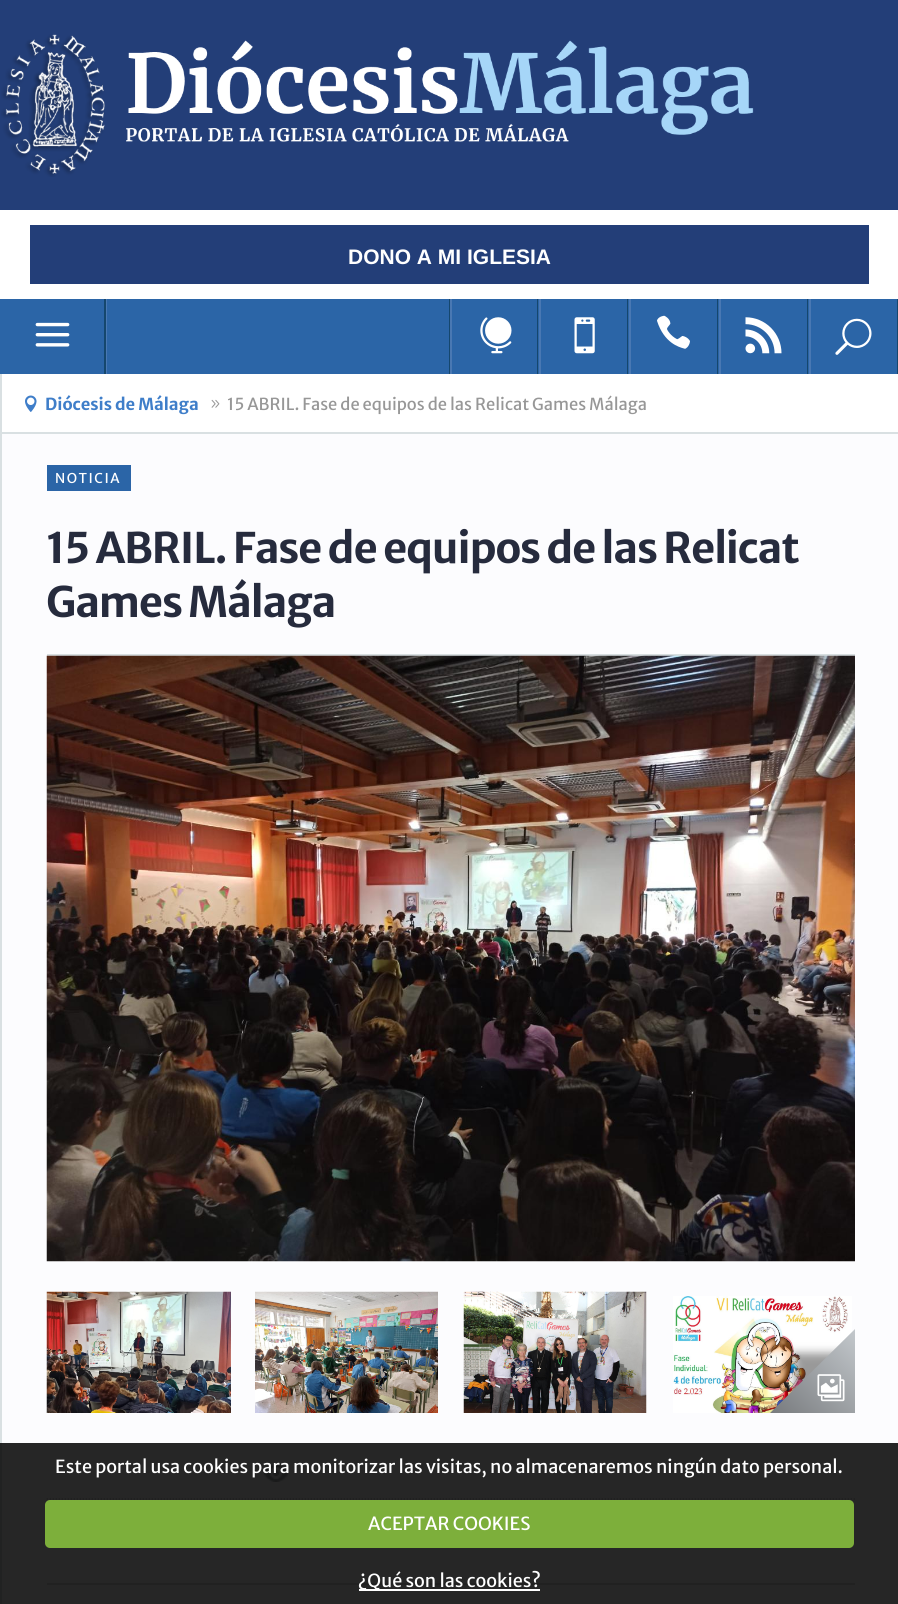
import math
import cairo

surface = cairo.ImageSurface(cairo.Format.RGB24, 898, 1604)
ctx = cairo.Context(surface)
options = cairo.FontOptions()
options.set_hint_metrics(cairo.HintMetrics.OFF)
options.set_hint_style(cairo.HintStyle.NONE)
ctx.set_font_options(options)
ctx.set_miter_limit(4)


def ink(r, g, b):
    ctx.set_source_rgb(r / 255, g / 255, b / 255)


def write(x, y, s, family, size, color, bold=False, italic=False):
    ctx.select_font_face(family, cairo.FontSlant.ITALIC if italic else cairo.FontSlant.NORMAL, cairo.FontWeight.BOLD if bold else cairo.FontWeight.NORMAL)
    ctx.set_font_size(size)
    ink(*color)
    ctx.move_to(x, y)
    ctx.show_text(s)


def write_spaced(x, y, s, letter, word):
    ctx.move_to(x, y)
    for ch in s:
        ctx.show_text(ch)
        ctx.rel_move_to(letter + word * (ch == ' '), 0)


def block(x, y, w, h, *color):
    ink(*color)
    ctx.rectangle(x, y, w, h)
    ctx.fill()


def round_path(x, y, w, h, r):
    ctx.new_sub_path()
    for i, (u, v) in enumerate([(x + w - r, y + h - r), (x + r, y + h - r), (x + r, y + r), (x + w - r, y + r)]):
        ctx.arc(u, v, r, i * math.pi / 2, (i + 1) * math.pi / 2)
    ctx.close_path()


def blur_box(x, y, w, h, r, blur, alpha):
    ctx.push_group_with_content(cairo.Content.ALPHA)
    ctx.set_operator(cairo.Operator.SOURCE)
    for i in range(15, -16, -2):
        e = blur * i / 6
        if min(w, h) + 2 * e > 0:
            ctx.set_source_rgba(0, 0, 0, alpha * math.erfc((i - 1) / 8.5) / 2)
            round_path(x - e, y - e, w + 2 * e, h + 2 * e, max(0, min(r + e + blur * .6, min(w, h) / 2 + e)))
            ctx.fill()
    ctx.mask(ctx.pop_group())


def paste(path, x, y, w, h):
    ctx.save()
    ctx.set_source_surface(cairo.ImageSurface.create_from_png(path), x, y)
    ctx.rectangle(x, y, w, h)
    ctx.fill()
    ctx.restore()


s1 = dict(family="Liberation Sans", size=21, color=(255, 255, 255), bold=True)
s2 = dict(family="Merriweather Sans", size=16.5, color=(63, 126, 201), bold=True)
s3 = dict(family="Merriweather Sans", size=16.5, color=(151, 151, 151))
s4 = dict(family="Merriweather Sans", size=18, color=(255, 255, 255))

ink(255, 255, 255)
ctx.paint()
block(0, 0, 898, 210, 35, 62, 120)
paste("pic1.png", 1, 34, 753, 143)
block(30, 225, 839, 59, 35, 62, 120)
write(348, 264, "DONO A MI IGLESIA", **s1)
block(0, 299, 897, 75, 43, 101, 167)
ink(73, 120, 179)
ctx.new_path()
ctx.move_to(2, 374)
ctx.line_to(107, 374)
ctx.line_to(107, 299)
ctx.line_to(105, 299)
ctx.line_to(105, 374)
ctx.close_path()
ctx.fill()
block(104, 299, 2, 75, 21, 71, 110)
paste("pic2.png", 35, 322, 35, 25)
ctx.new_path()
ctx.move_to(449, 299)
ctx.line_to(449, 374)
ctx.line_to(537, 374)
ctx.line_to(450, 374)
ctx.line_to(450, 299)
ctx.close_path()
ctx.fill()
block(450, 299, 2, 75, 73, 120, 179)
paste("pic3.png", 480, 317, 32, 37)
ink(21, 71, 110)
ctx.new_path()
ctx.move_to(537, 299)
ctx.line_to(537, 374)
ctx.line_to(627, 374)
ctx.line_to(538, 374)
ctx.line_to(538, 299)
ctx.close_path()
ctx.fill()
block(539, 299, 2, 75, 73, 120, 179)
paste("pic4.png", 574, 317, 21, 37)
ink(21, 71, 110)
ctx.new_path()
ctx.move_to(627, 299)
ctx.line_to(627, 374)
ctx.line_to(717, 374)
ctx.line_to(628, 374)
ctx.line_to(628, 299)
ctx.close_path()
ctx.fill()
block(629, 299, 2, 75, 73, 120, 179)
paste("pic5.png", 657, 315, 33, 34)
ink(21, 71, 110)
ctx.new_path()
ctx.move_to(717, 299)
ctx.line_to(717, 374)
ctx.line_to(807, 374)
ctx.line_to(718, 374)
ctx.line_to(718, 299)
ctx.close_path()
ctx.fill()
block(719, 299, 2, 75, 73, 120, 179)
paste("pic6.png", 745, 317, 37, 37)
ink(21, 71, 110)
ctx.new_path()
ctx.move_to(807, 299)
ctx.line_to(807, 374)
ctx.line_to(897, 374)
ctx.line_to(808, 374)
ctx.line_to(808, 299)
ctx.close_path()
ctx.fill()
block(897, 299, 1, 75, 21, 71, 110)
block(809, 299, 2, 75, 73, 120, 179)
paste("pic7.png", 835, 318, 37, 37)
block(0, 374, 2, 1069, 217, 224, 226)
block(0, 1443, 2, 161, 33, 34, 34)
block(2, 432, 896, 2, 217, 224, 226)
paste("pic8.png", 25, 395, 12, 17)
write(45, 410, "Diócesis de Málaga", **s2)
paste("pic9.png", 211, 399, 9, 9)
write(227, 410, "15 ABRIL. Fase de equipos de las Relicat Games Málaga", **s3)
block(2, 434, 896, 1009, 252, 252, 254)
block(2, 1443, 896, 161, 38, 38, 38)
block(47, 465, 84, 26, 43, 101, 167)
ctx.set_font_size(13.5)
ink(255, 255, 255)
write_spaced(55, 483, "NOTICIA", 1.5, 0)
block(47, 654, 808, 2, 215, 222, 224)
ctx.select_font_face("Merriweather Sans", cairo.FontSlant.NORMAL, cairo.FontWeight.BOLD)
ctx.set_font_size(42)
ink(38, 43, 61)
write_spaced(46, 563, "15 ABRIL. Fase de equipos de las Relicat", -1.2, 0)
write_spaced(46, 617, "Games Málaga", -1.2, 0)
paste("pic10.png", 46, 655, 809, 607)
paste("pic11.png", 46, 1291, 185, 122)
paste("pic12.png", 255, 1291, 183, 122)
paste("pic13.png", 463, 1291, 184, 122)
paste("pic14.png", 673, 1296, 179, 117)
ctx.save()
ctx.rectangle(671, 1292, 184, 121)
ctx.clip()
ink(0, 0, 0)
blur_box(795, 1353, 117, 120, 0, 4.5, 0.4)
ctx.restore()
ctx.save()
ctx.rectangle(671, 1292, 184, 121)
ctx.clip()
gradient = cairo.LinearGradient(897, 1371, 813, 1456)
gradient.add_color_stop_rgba(0, 0.765, 0.784, 0.8, 1)
gradient.add_color_stop_rgba(1, 0.467, 0.478, 0.49, 1)
ctx.set_source(gradient)
ctx.new_path()
ctx.move_to(855, 1329)
ctx.line_to(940, 1413)
ctx.line_to(855, 1498)
ctx.line_to(770, 1413)
ctx.close_path()
ctx.fill()
ctx.restore()
paste("pic15.png", 817, 1374, 28, 28)
ctx.new_path()
ctx.move_to(46.5, 1499)
ctx.line_to(855, 1499)
ink(31, 31, 31)
ctx.set_line_width(1.5)
ctx.set_dash([1.5, 1.5])
ctx.stroke()
paste("pic16.png", 264, 1463, 24, 19)
block(47, 1583, 808, 2, 33, 33, 33)
write(55, 1473, "Este portal usa cookies para monitorizar las visitas, no almacenaremos ningún dato personal.", **s4)
ink(125, 175, 59)
round_path(45, 1500, 809, 48, 5)
ctx.fill()
write(368, 1530, "ACEPTAR COOKIES", **s4)
block(359, 1589, 181, 2, 255, 255, 255)
write(358, 1587, "¿Qué son las cookies?", **s4)
surface.write_to_png("screenshot.png")
